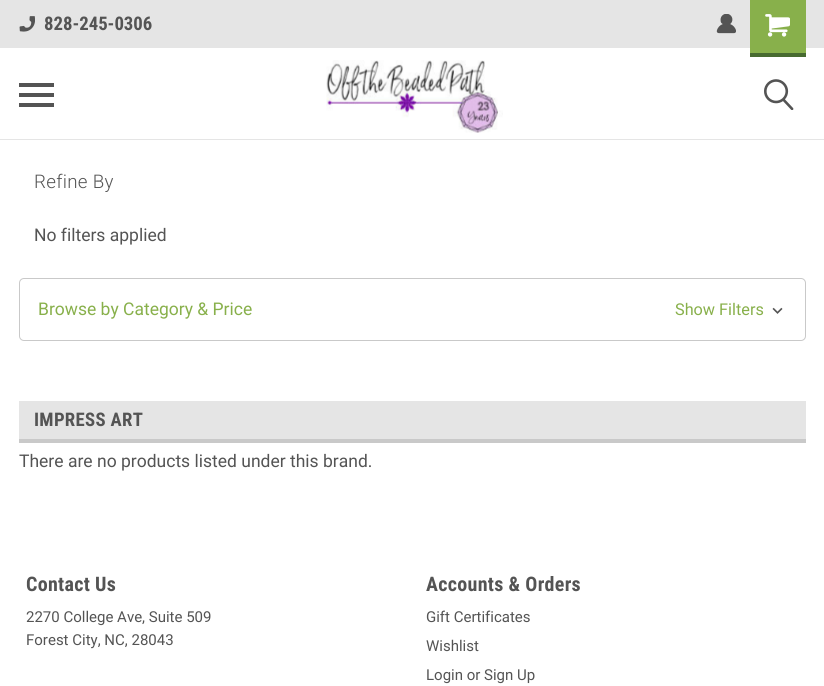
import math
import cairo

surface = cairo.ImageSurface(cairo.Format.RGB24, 824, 686)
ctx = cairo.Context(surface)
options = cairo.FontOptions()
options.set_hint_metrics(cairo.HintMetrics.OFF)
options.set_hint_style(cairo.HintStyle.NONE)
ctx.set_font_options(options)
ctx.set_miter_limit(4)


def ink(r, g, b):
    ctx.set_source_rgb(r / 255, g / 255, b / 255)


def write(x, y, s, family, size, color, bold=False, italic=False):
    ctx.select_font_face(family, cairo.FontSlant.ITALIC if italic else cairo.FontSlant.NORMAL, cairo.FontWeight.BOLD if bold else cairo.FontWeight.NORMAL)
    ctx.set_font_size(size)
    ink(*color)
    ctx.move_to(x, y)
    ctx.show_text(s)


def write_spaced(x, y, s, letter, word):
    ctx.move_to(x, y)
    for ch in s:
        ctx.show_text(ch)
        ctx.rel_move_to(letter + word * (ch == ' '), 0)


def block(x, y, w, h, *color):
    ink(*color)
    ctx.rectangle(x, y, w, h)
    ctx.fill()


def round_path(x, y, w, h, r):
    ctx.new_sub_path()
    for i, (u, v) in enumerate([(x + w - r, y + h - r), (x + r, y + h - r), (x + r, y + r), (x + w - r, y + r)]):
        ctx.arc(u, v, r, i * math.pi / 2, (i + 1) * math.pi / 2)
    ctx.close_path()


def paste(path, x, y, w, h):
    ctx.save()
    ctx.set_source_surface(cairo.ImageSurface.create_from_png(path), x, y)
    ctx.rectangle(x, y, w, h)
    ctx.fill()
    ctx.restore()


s1 = dict(family="Roboto Condensed", size=18.75, color=(84, 84, 84), bold=True)
s2 = dict(family="Roboto", size=17.5, color=(84, 84, 84))
s3 = dict(family="Roboto", size=17.5, color=(136, 176, 75))
s4 = dict(family="Roboto", size=16.25, color=(136, 176, 75))
s5 = dict(family="Roboto", size=15, color=(84, 84, 84))

ink(255, 255, 255)
ctx.paint()
block(0, 139, 824, 1, 229, 229, 229)
block(0, 0, 824, 48, 229, 229, 229)
paste("pic1.png", 19, 16, 16, 16)
write(44, 30, "828-245-0306", **s1)
paste("pic2.png", 716, 14, 20, 20)
block(750, 0, 56, 53, 136, 176, 75)
block(750, 53, 56, 4, 71, 106, 48)
paste("pic3.png", 765, 14, 25, 23)
block(19, 93, 35, 4, 84, 84, 84)
block(19, 83, 35, 4, 84, 84, 84)
block(19, 103, 35, 4, 84, 84, 84)
paste("pic4.png", 326, 60, 177, 73)
paste("pic5.png", 764, 79, 30, 31)
ctx.select_font_face("Roboto Light")
write_spaced(34, 188, "Refine By", 0.3, 0)
write(34, 241, "No filters applied", **s2)
round_path(19.5, 278.5, 786, 62, 4.5)
ink(201, 201, 201)
ctx.set_line_width(1)
ctx.stroke()
write(38, 315, "Browse by Category & Price", **s3)
write(675, 315, "Show Filters", **s4)
paste("pic6.png", 772, 307, 11, 7)
block(19, 401, 787, 38, 229, 229, 229)
block(19, 439, 787, 4, 201, 201, 201)
ctx.select_font_face("Roboto Condensed", cairo.FontSlant.NORMAL, cairo.FontWeight.BOLD)
ctx.set_font_size(18.75)
ink(84, 84, 84)
write_spaced(34, 426, "IMPRESS ART", 0.3, 0)
write(19, 467, "There are no products listed under this brand.", **s2)
ctx.select_font_face("Roboto Condensed", cairo.FontSlant.NORMAL, cairo.FontWeight.BOLD)
ctx.set_font_size(20)
write_spaced(26, 591, "Contact Us", 0.3, 0)
write(26, 622, "2270 College Ave, Suite 509", **s5)
write(26, 645, "Forest City, NC, 28043", **s5)
ctx.select_font_face("Roboto Condensed", cairo.FontSlant.NORMAL, cairo.FontWeight.BOLD)
ctx.set_font_size(20)
write_spaced(426, 591, "Accounts & Orders", 0.3, 0)
write(426, 622, "Gift Certificates", **s5)
write(426, 651, "Wishlist", **s5)
write(426, 680, "Login or", **s5)
write(484, 680, "Sign Up", **s5)
surface.write_to_png("screenshot.png")
